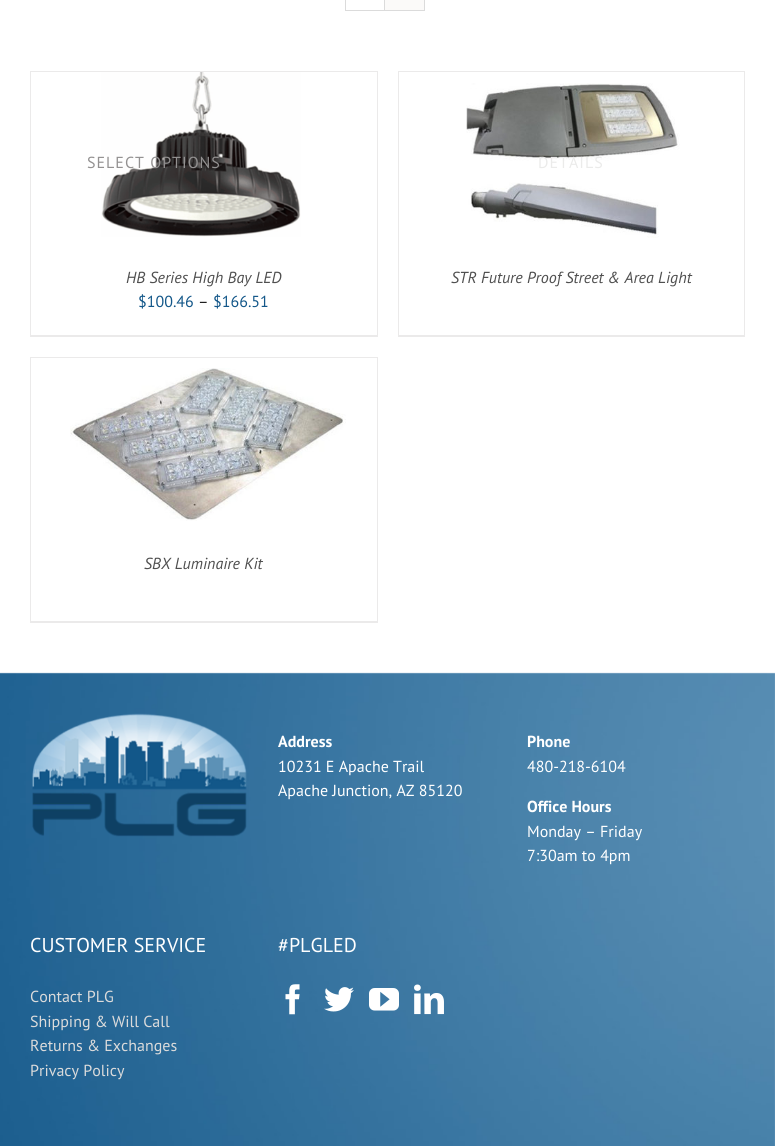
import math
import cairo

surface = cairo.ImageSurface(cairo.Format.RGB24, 775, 1146)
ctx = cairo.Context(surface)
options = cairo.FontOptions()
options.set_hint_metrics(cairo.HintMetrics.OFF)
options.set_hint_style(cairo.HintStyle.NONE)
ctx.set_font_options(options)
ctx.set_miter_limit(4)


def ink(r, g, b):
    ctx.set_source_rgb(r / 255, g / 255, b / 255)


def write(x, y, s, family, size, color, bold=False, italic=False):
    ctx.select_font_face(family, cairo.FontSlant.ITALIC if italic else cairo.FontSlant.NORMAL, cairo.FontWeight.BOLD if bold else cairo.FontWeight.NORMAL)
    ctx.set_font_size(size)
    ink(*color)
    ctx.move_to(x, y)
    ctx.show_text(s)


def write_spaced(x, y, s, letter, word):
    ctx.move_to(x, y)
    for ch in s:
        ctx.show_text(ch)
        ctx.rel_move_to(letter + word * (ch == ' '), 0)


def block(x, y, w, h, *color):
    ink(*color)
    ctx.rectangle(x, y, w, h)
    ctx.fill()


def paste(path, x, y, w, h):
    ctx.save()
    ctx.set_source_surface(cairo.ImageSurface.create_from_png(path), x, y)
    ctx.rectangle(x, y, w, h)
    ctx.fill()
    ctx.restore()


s1 = dict(family="PT Sans", size=16, color=(79, 79, 79), italic=True)
s2 = dict(family="PT Sans", size=16, color=(19, 87, 137))
s3 = dict(family="PT Sans", size=16, color=(28, 28, 28))
s4 = dict(family="PT Sans", size=16, color=(255, 255, 255), bold=True)
s5 = dict(family="PT Sans", size=16, color=(255, 255, 255))
s6 = dict(family="PT Sans", size=20, color=(255, 255, 255))
s7 = dict(family="PT Sans", size=16, color=(219, 219, 219))

ink(255, 255, 255)
ctx.paint()
ctx.rectangle(345.5, -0.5, 79, 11)
ink(219, 219, 219)
ctx.set_line_width(1)
ctx.stroke()
block(384, 0, 1, 10, 219, 219, 219)
block(385, 0, 39, 10, 251, 250, 249)
block(30, 71, 348, 1, 235, 234, 234)
block(377, 71, 1, 266, 235, 234, 234)
block(30, 335, 348, 2, 235, 234, 234)
block(30, 71, 1, 266, 235, 234, 234)
paste("pic1.png", 101, 72, 200, 165)
ctx.select_font_face("PT Sans")
ctx.set_font_size(16)
ink(147, 145, 145)
write_spaced(87, 168, "SELECT OPTIONS", 1, 0)
write(126, 283, "HB Series High Bay LED", **s1)
write(138, 307, "$100.46", **s2)
write(198, 307, "–", **s3)
write(213, 307, "$166.51", **s2)
block(398, 71, 347, 1, 235, 234, 234)
block(744, 71, 1, 266, 235, 234, 234)
block(398, 335, 347, 2, 235, 234, 234)
block(398, 71, 1, 266, 235, 234, 234)
paste("pic2.png", 466, 83, 214, 155)
ink(235, 235, 234)
write_spaced(538, 168, "DETAILS", 1, 0)
write(451, 283, "STR Future Proof Street & Area Light", **s1)
block(30, 357, 348, 1, 235, 234, 234)
block(377, 357, 1, 266, 235, 234, 234)
block(30, 621, 348, 2, 235, 234, 234)
block(30, 357, 1, 266, 235, 234, 234)
paste("pic3.png", 70, 368, 276, 153)
write(144, 569, "SBX Luminaire Kit", **s1)
paste("pic4.png", 0, 672, 775, 474)
paste("pic5.png", 32, 713, 215, 124)
write(278, 747, "Address", **s4)
write(278, 772, "10231 E Apache Trail", **s5)
write(278, 796, "Apache Junction, AZ 85120", **s5)
write(527, 747, "Phone", **s4)
write(527, 772, "480-218-6104", **s5)
write(527, 812, "Office Hours", **s4)
write(527, 837, "Monday – Friday", **s5)
write(527, 861, "7:30am to 4pm", **s5)
write(30, 952, "CUSTOMER SERVICE", **s6)
write(30, 1002, "Contact PLG", **s7)
write(30, 1027, "Shipping & Will Call", **s7)
write(30, 1051, "Returns & Exchanges", **s7)
write(30, 1076, "Privacy Policy", **s7)
write(278, 952, "#PLGLED", **s6)
paste("pic6.png", 285, 984, 15, 31)
paste("pic7.png", 324, 987, 30, 25)
paste("pic8.png", 369, 988, 30, 23)
paste("pic9.png", 414, 984, 30, 31)
surface.write_to_png("screenshot.png")
